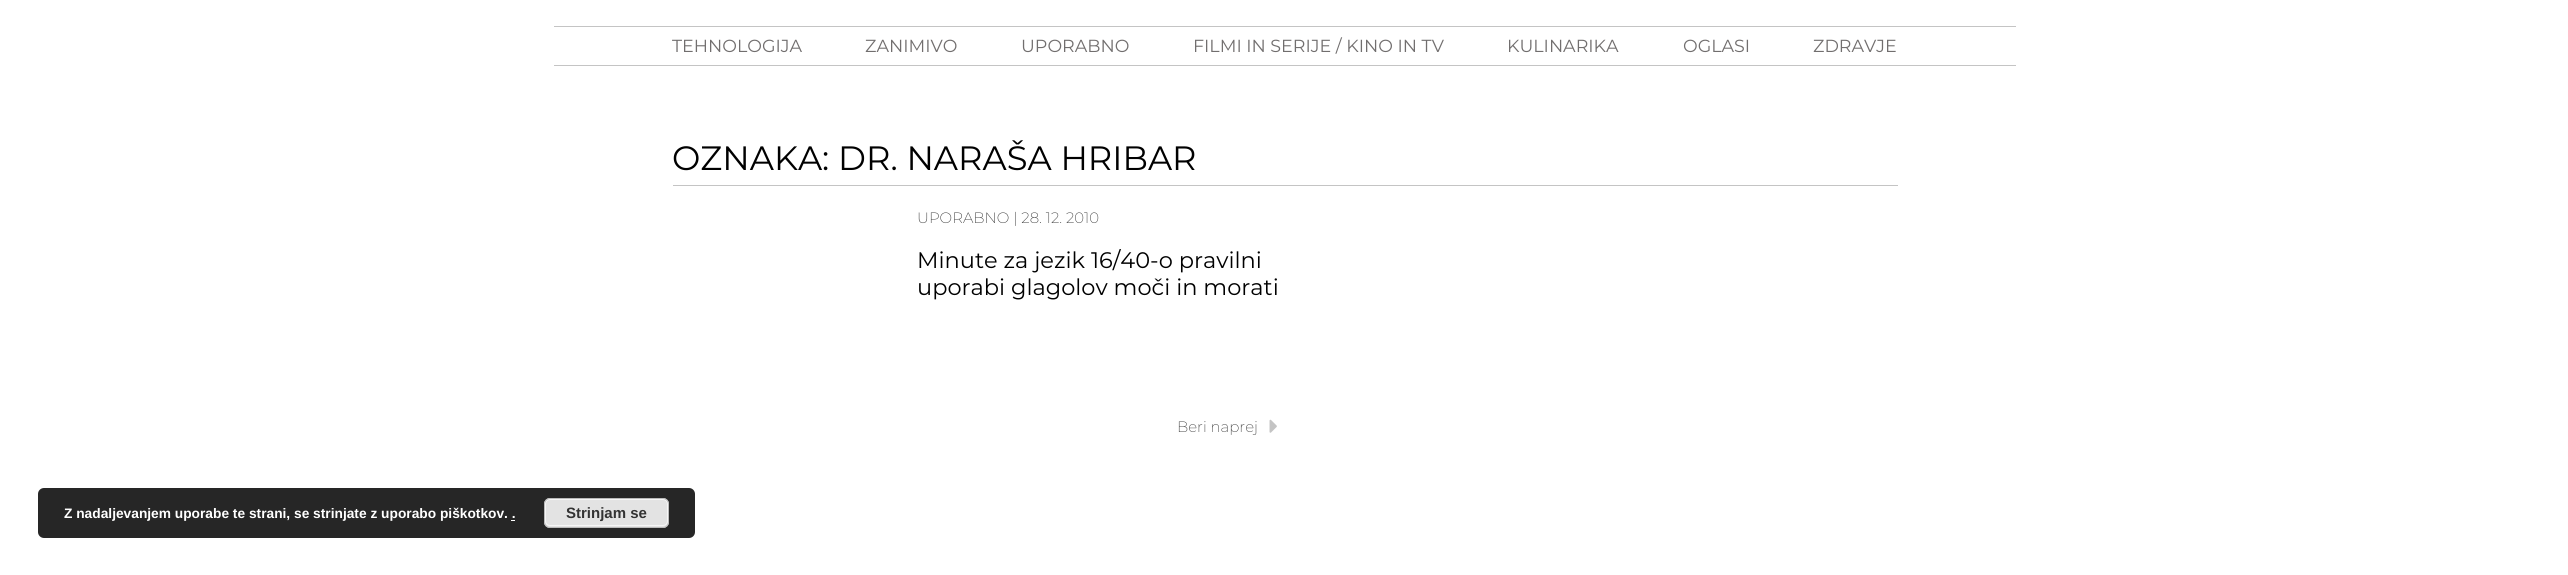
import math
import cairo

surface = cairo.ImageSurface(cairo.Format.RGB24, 2568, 575)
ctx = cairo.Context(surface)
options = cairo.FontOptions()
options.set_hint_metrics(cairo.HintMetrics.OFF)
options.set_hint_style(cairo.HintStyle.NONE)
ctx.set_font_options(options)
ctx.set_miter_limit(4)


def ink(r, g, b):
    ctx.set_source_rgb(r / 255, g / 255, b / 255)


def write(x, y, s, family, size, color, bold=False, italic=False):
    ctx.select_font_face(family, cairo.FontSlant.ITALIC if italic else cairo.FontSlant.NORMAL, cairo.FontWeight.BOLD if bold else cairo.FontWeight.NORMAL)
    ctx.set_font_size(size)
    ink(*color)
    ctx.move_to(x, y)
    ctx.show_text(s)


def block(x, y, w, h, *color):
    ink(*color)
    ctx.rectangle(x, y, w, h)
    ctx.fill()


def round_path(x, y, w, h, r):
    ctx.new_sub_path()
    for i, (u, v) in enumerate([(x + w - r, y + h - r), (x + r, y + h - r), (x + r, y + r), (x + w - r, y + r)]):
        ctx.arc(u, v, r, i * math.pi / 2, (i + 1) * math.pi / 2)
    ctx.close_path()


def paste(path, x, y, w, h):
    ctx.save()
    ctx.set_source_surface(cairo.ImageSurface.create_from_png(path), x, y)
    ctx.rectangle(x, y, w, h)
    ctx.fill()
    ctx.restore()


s1 = dict(family="Montserrat", size=17.5, color=(113, 110, 110))
s2 = dict(family="Montserrat", size=33.75, color=(0, 0, 0))
s3 = dict(family="Montserrat ExtraLight", size=15, color=(51, 51, 51))
s4 = dict(family="Montserrat", size=22.5, color=(0, 0, 0))
s5 = dict(family="Liberation Sans", size=13.75, color=(255, 255, 255), bold=True)
s6 = dict(family="Liberation Sans", size=15, color=(51, 51, 51), bold=True)

ink(255, 255, 255)
ctx.paint()
block(554, 26, 1462, 1, 196, 196, 196)
block(554, 65, 1462, 1, 196, 196, 196)
write(672, 52, "TEHNOLOGIJA", **s1)
write(865, 52, "ZANIMIVO", **s1)
write(1021, 52, "UPORABNO", **s1)
write(1193, 52, "FILMI IN SERIJE / KINO IN TV", **s1)
write(1507, 52, "KULINARIKA", **s1)
write(1683, 52, "OGLASI", **s1)
write(1813, 52, "ZDRAVJE", **s1)
block(673, 185, 1225, 1, 196, 196, 196)
write(672, 170, "OZNAKA: DR. NARAŠA HRIBAR", **s2)
write(917, 223, "UPORABNO | 28. 12. 2010", **s3)
write(917, 268, "Minute za jezik 16/40-o pravilni", **s4)
write(917, 295, "uporabi glagolov moči in morati", **s4)
write(1177, 432, "Beri naprej", **s3)
paste("pic1.png", 1269, 419, 8, 14)
ink(38, 38, 38)
round_path(38, 488, 657, 50, 6)
ctx.fill()
write(64, 518, "Z nadaljevanjem uporabe te strani, se strinjate z uporabo piškotkov. .", **s5)
ink(227, 227, 227)
round_path(544, 498, 125, 30, 6)
ctx.fill()
round_path(545.5, 499.5, 122, 26, 4.5)
ink(246, 246, 246)
ctx.set_line_width(1)
ctx.stroke()
round_path(544.5, 498.5, 124, 29, 5.5)
ink(187, 187, 187)
ctx.stroke()
write(566, 518, "Strinjam se", **s6)
block(511, 520, 4, 1, 255, 255, 255)
surface.write_to_png("screenshot.png")
